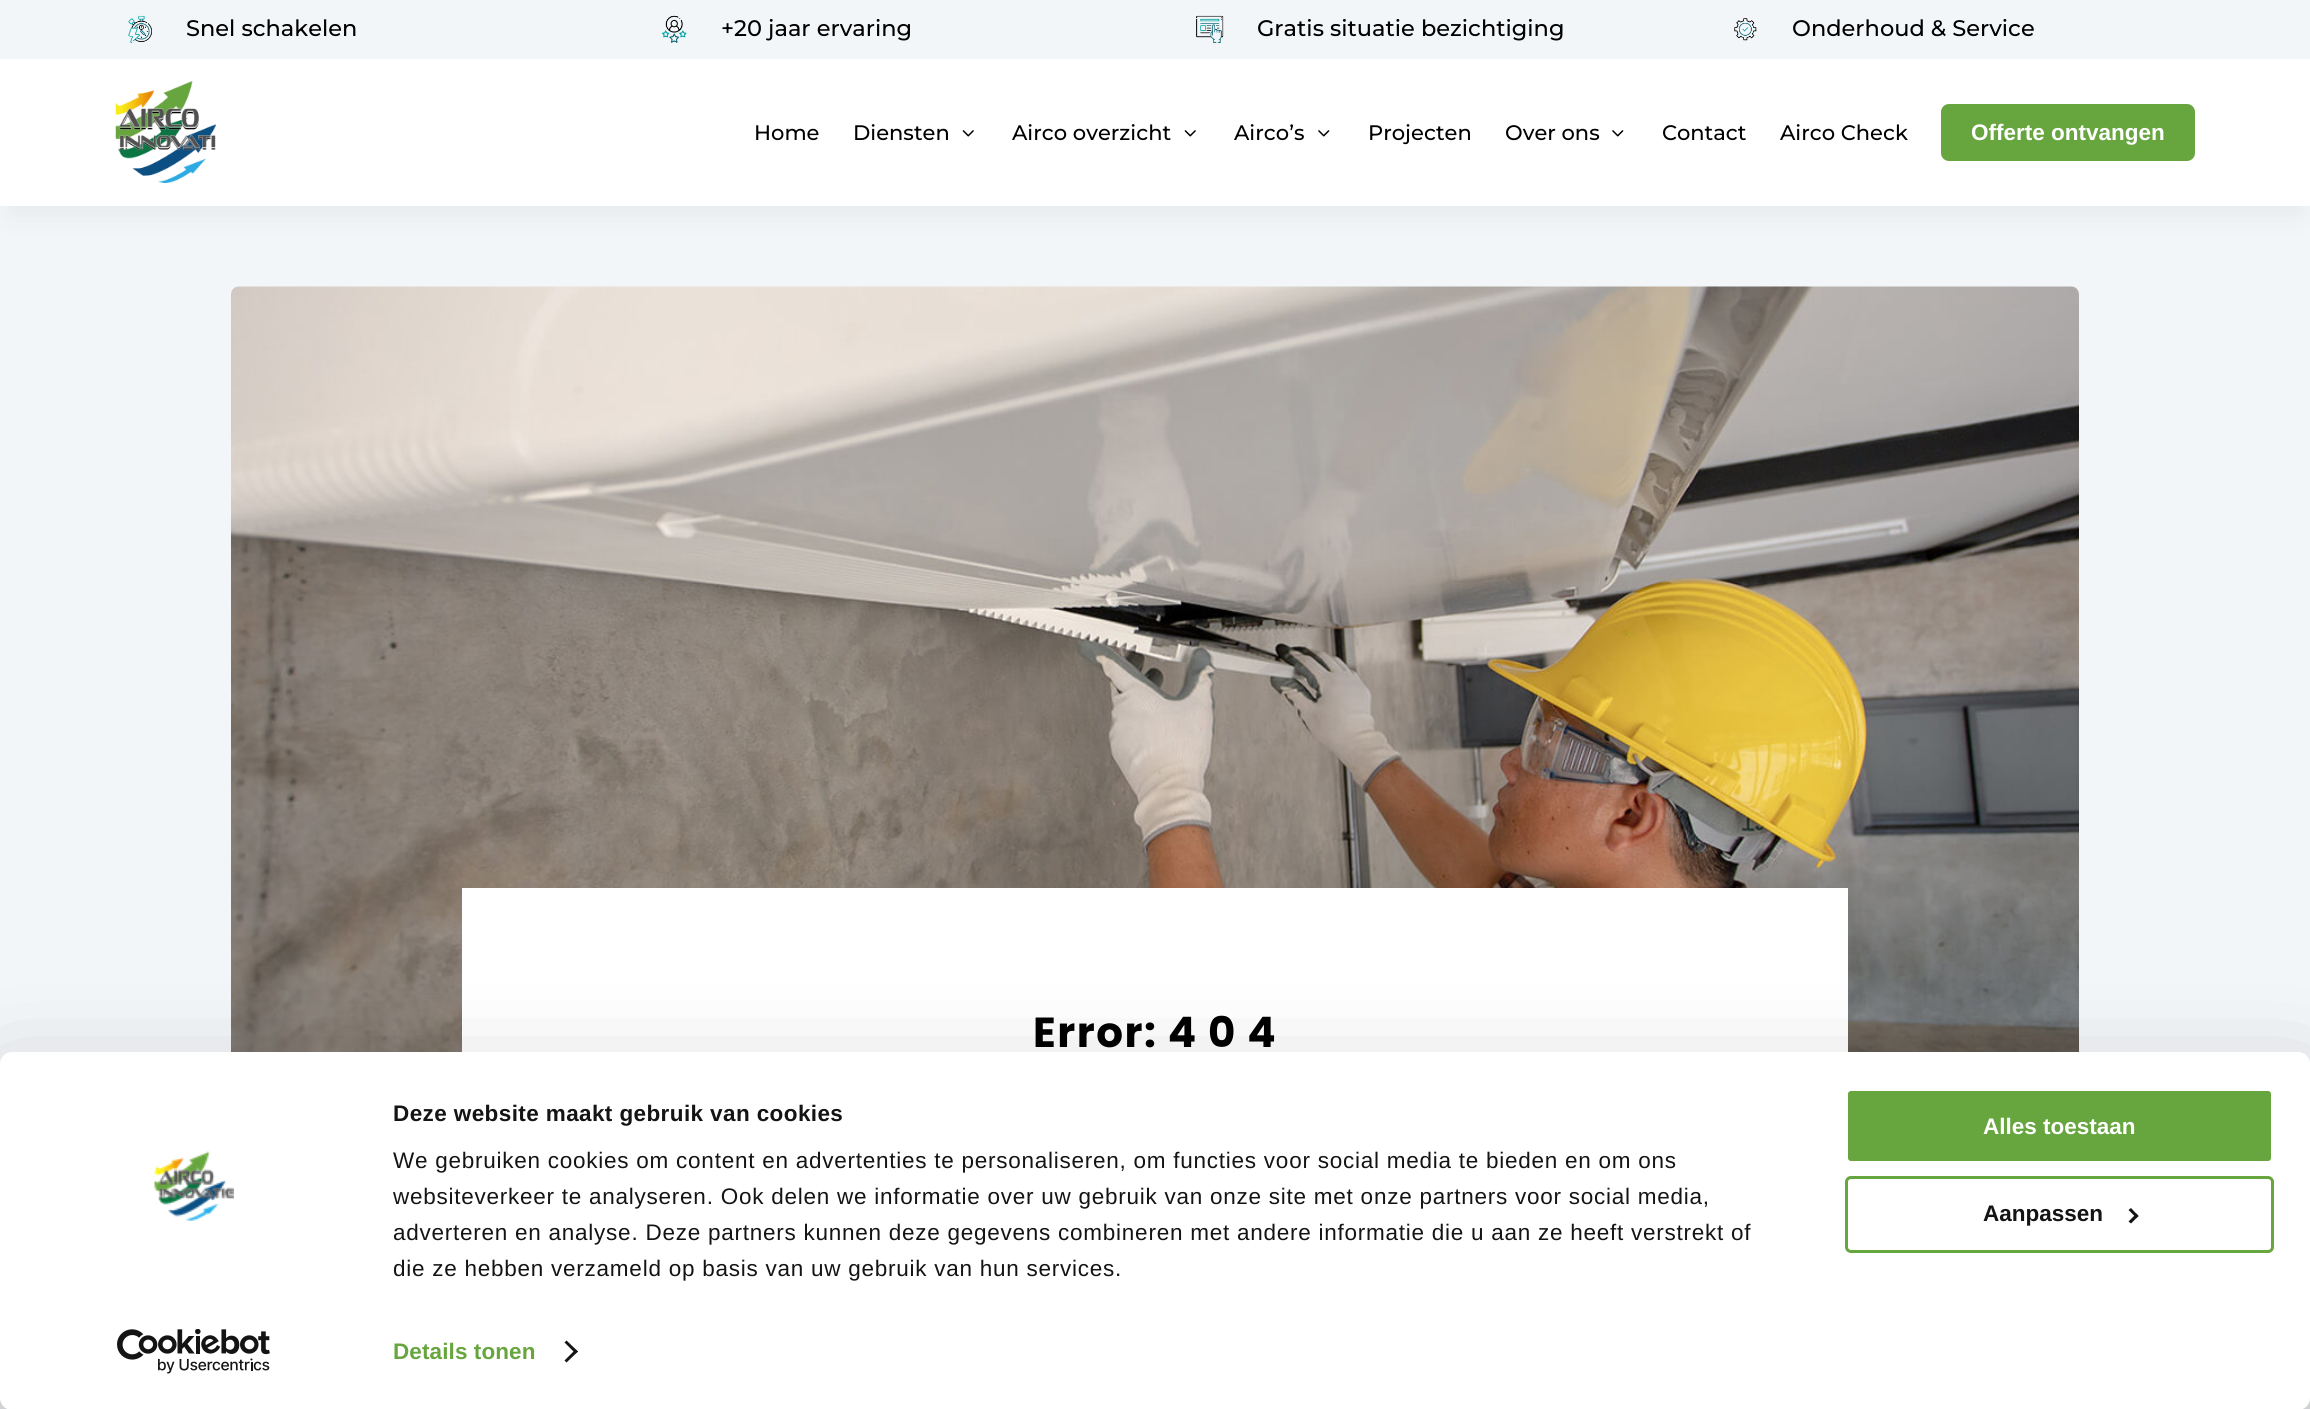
import math
import cairo

surface = cairo.ImageSurface(cairo.Format.RGB24, 2310, 1409)
ctx = cairo.Context(surface)
options = cairo.FontOptions()
options.set_hint_metrics(cairo.HintMetrics.OFF)
options.set_hint_style(cairo.HintStyle.NONE)
ctx.set_font_options(options)
ctx.set_miter_limit(4)


def ink(r, g, b):
    ctx.set_source_rgb(r / 255, g / 255, b / 255)


def write(x, y, s, family, size, color, bold=False, italic=False):
    ctx.select_font_face(family, cairo.FontSlant.ITALIC if italic else cairo.FontSlant.NORMAL, cairo.FontWeight.BOLD if bold else cairo.FontWeight.NORMAL)
    ctx.set_font_size(size)
    ink(*color)
    ctx.move_to(x, y)
    ctx.show_text(s)


def write_spaced(x, y, s, letter, word):
    ctx.move_to(x, y)
    for ch in s:
        ctx.show_text(ch)
        ctx.rel_move_to(letter + word * (ch == ' '), 0)


def block(x, y, w, h, *color):
    ink(*color)
    ctx.rectangle(x, y, w, h)
    ctx.fill()


def round_path(x, y, w, h, r):
    ctx.new_sub_path()
    for i, (u, v) in enumerate([(x + w - r, y + h - r), (x + r, y + h - r), (x + r, y + r), (x + w - r, y + r)]):
        ctx.arc(u, v, r, i * math.pi / 2, (i + 1) * math.pi / 2)
    ctx.close_path()


def blur_box(x, y, w, h, r, blur, alpha):
    ctx.push_group_with_content(cairo.Content.ALPHA)
    ctx.set_operator(cairo.Operator.SOURCE)
    for i in range(15, -16, -2):
        e = blur * i / 6
        if min(w, h) + 2 * e > 0:
            ctx.set_source_rgba(0, 0, 0, alpha * math.erfc((i - 1) / 8.5) / 2)
            round_path(x - e, y - e, w + 2 * e, h + 2 * e, max(0, min(r + e + blur * .6, min(w, h) / 2 + e)))
            ctx.fill()
    ctx.mask(ctx.pop_group())


def paste(path, x, y, w, h):
    ctx.save()
    ctx.set_source_surface(cairo.ImageSurface.create_from_png(path), x, y)
    ctx.rectangle(x, y, w, h)
    ctx.fill()
    ctx.restore()


s1 = dict(family="Montserrat Thin", size=22.5, color=(0, 0, 0))
s2 = dict(family="Montserrat Thin", size=21, color=(0, 0, 0))
s3 = dict(family="Liberation Sans", size=22.5, color=(255, 255, 255), bold=True)
s4 = dict(family="Liberation Sans", size=22.5, color=(20, 20, 20), bold=True)

ink(243, 246, 249)
ctx.paint()
paste("pic1.png", 128, 15, 24, 28)
write(186, 36, "Snel schakelen", **s1)
paste("pic2.png", 662, 15, 25, 28)
write(721, 36, "+20 jaar ervaring", **s1)
paste("pic3.png", 1196, 15, 28, 28)
write(1257, 36, "Gratis situatie bezichtiging", **s1)
paste("pic4.png", 1734, 18, 23, 23)
write(1792, 36, "Onderhoud & Service", **s1)
ink(0, 0, 0)
blur_box(9, 86, 2292, 129, 0, 13.5, 0.05)
block(0, 59, 2310, 147, 255, 255, 255)
paste("pic5.png", 115, 81, 101, 102)
write(754, 140, "Home", **s2)
write(853, 140, "Diensten", **s2)
paste("pic6.png", 962, 130, 12, 7)
write(1012, 140, "Airco overzicht", **s2)
paste("pic6.png", 1184, 130, 12, 7)
write(1234, 140, "Airco’s", **s2)
paste("pic7.png", 1318, 130, 12, 7)
write(1368, 140, "Projecten", **s2)
write(1505, 140, "Over ons", **s2)
paste("pic7.png", 1612, 130, 12, 7)
write(1662, 140, "Contact", **s2)
write(1780, 140, "Airco Check", **s2)
ink(103, 165, 63)
round_path(1941, 104, 254, 57, 8)
ctx.fill()
write(1971, 140, "Offerte ontvangen", **s3)
paste("pic8.png", 231, 286, 1848, 766)
block(462, 888, 1386, 164, 255, 255, 255)
ctx.select_font_face("Poppins", cairo.FontSlant.NORMAL, cairo.FontWeight.BOLD)
ctx.set_font_size(42)
ink(0, 0, 0)
write_spaced(1033, 1047, "Error: 4 0 4", 1.5, 0)
ink(0, 0, 0)
blur_box(0, 1097, 2310, 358, 12, 52.5, 0.3)
ink(255, 255, 255)
round_path(0, 1052, 2310, 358, 12)
ctx.fill()
paste("pic9.png", 154, 1151, 80, 70)
paste("pic10.png", 117, 1329, 153, 45)
ctx.select_font_face("Liberation Sans", cairo.FontSlant.NORMAL, cairo.FontWeight.BOLD)
ctx.set_font_size(22.5)
ink(20, 20, 20)
write_spaced(393, 1121, "Deze website maakt gebruik van cookies", 0.4, 0)
ctx.select_font_face("Liberation Sans")
write_spaced(393, 1168, "We gebruiken cookies om content en advertenties te personaliseren, om functies voor social media te bieden en om ons", 0.75, 0)
write_spaced(393, 1204, "websiteverkeer te analyseren. Ook delen we informatie over uw gebruik van onze site met onze partners voor social media,", 0.75, 0)
write_spaced(393, 1240, "adverteren en analyse. Deze partners kunnen deze gegevens combineren met andere informatie die u aan ze heeft verstrekt of", 0.75, 0)
write_spaced(393, 1276, "die ze hebben verzameld op basis van uw gebruik van hun services.", 0.75, 0)
ctx.select_font_face("Liberation Sans", cairo.FontSlant.NORMAL, cairo.FontWeight.BOLD)
ink(103, 165, 63)
write_spaced(393, 1359, "Details tonen", 0.1, 0)
ink(20, 20, 20)
ctx.new_path()
ctx.move_to(566.5, 1340.5)
ctx.line_to(578, 1351.5)
ctx.line_to(575.5, 1353.5)
ctx.line_to(564.5, 1342.5)
ctx.close_path()
ctx.fill()
ctx.new_path()
ctx.move_to(575.5, 1349.5)
ctx.line_to(578, 1351.5)
ctx.line_to(566.5, 1362.5)
ctx.line_to(564.5, 1360.5)
ctx.close_path()
ctx.fill()
ink(103, 165, 63)
round_path(1846.5, 1089.5, 426, 73, 4.5)
ctx.fill_preserve()
ink(255, 255, 255)
ctx.set_line_width(3)
ctx.stroke()
write(1983, 1134, "Alles toestaan", **s3)
round_path(1846.5, 1177.5, 426, 74, 4.5)
ink(103, 165, 63)
ctx.stroke()
write(1983, 1221, "Aanpassen", **s4)
ctx.new_path()
ctx.move_to(2131, 1208)
ctx.line_to(2138.5, 1216)
ctx.line_to(2136.5, 1218)
ctx.line_to(2128.5, 1210)
ctx.close_path()
ctx.fill()
ctx.new_path()
ctx.move_to(2136.5, 1213.5)
ctx.line_to(2138.5, 1216)
ctx.line_to(2131, 1223.5)
ctx.line_to(2128.5, 1221.5)
ctx.close_path()
ctx.fill()
surface.write_to_png("screenshot.png")
